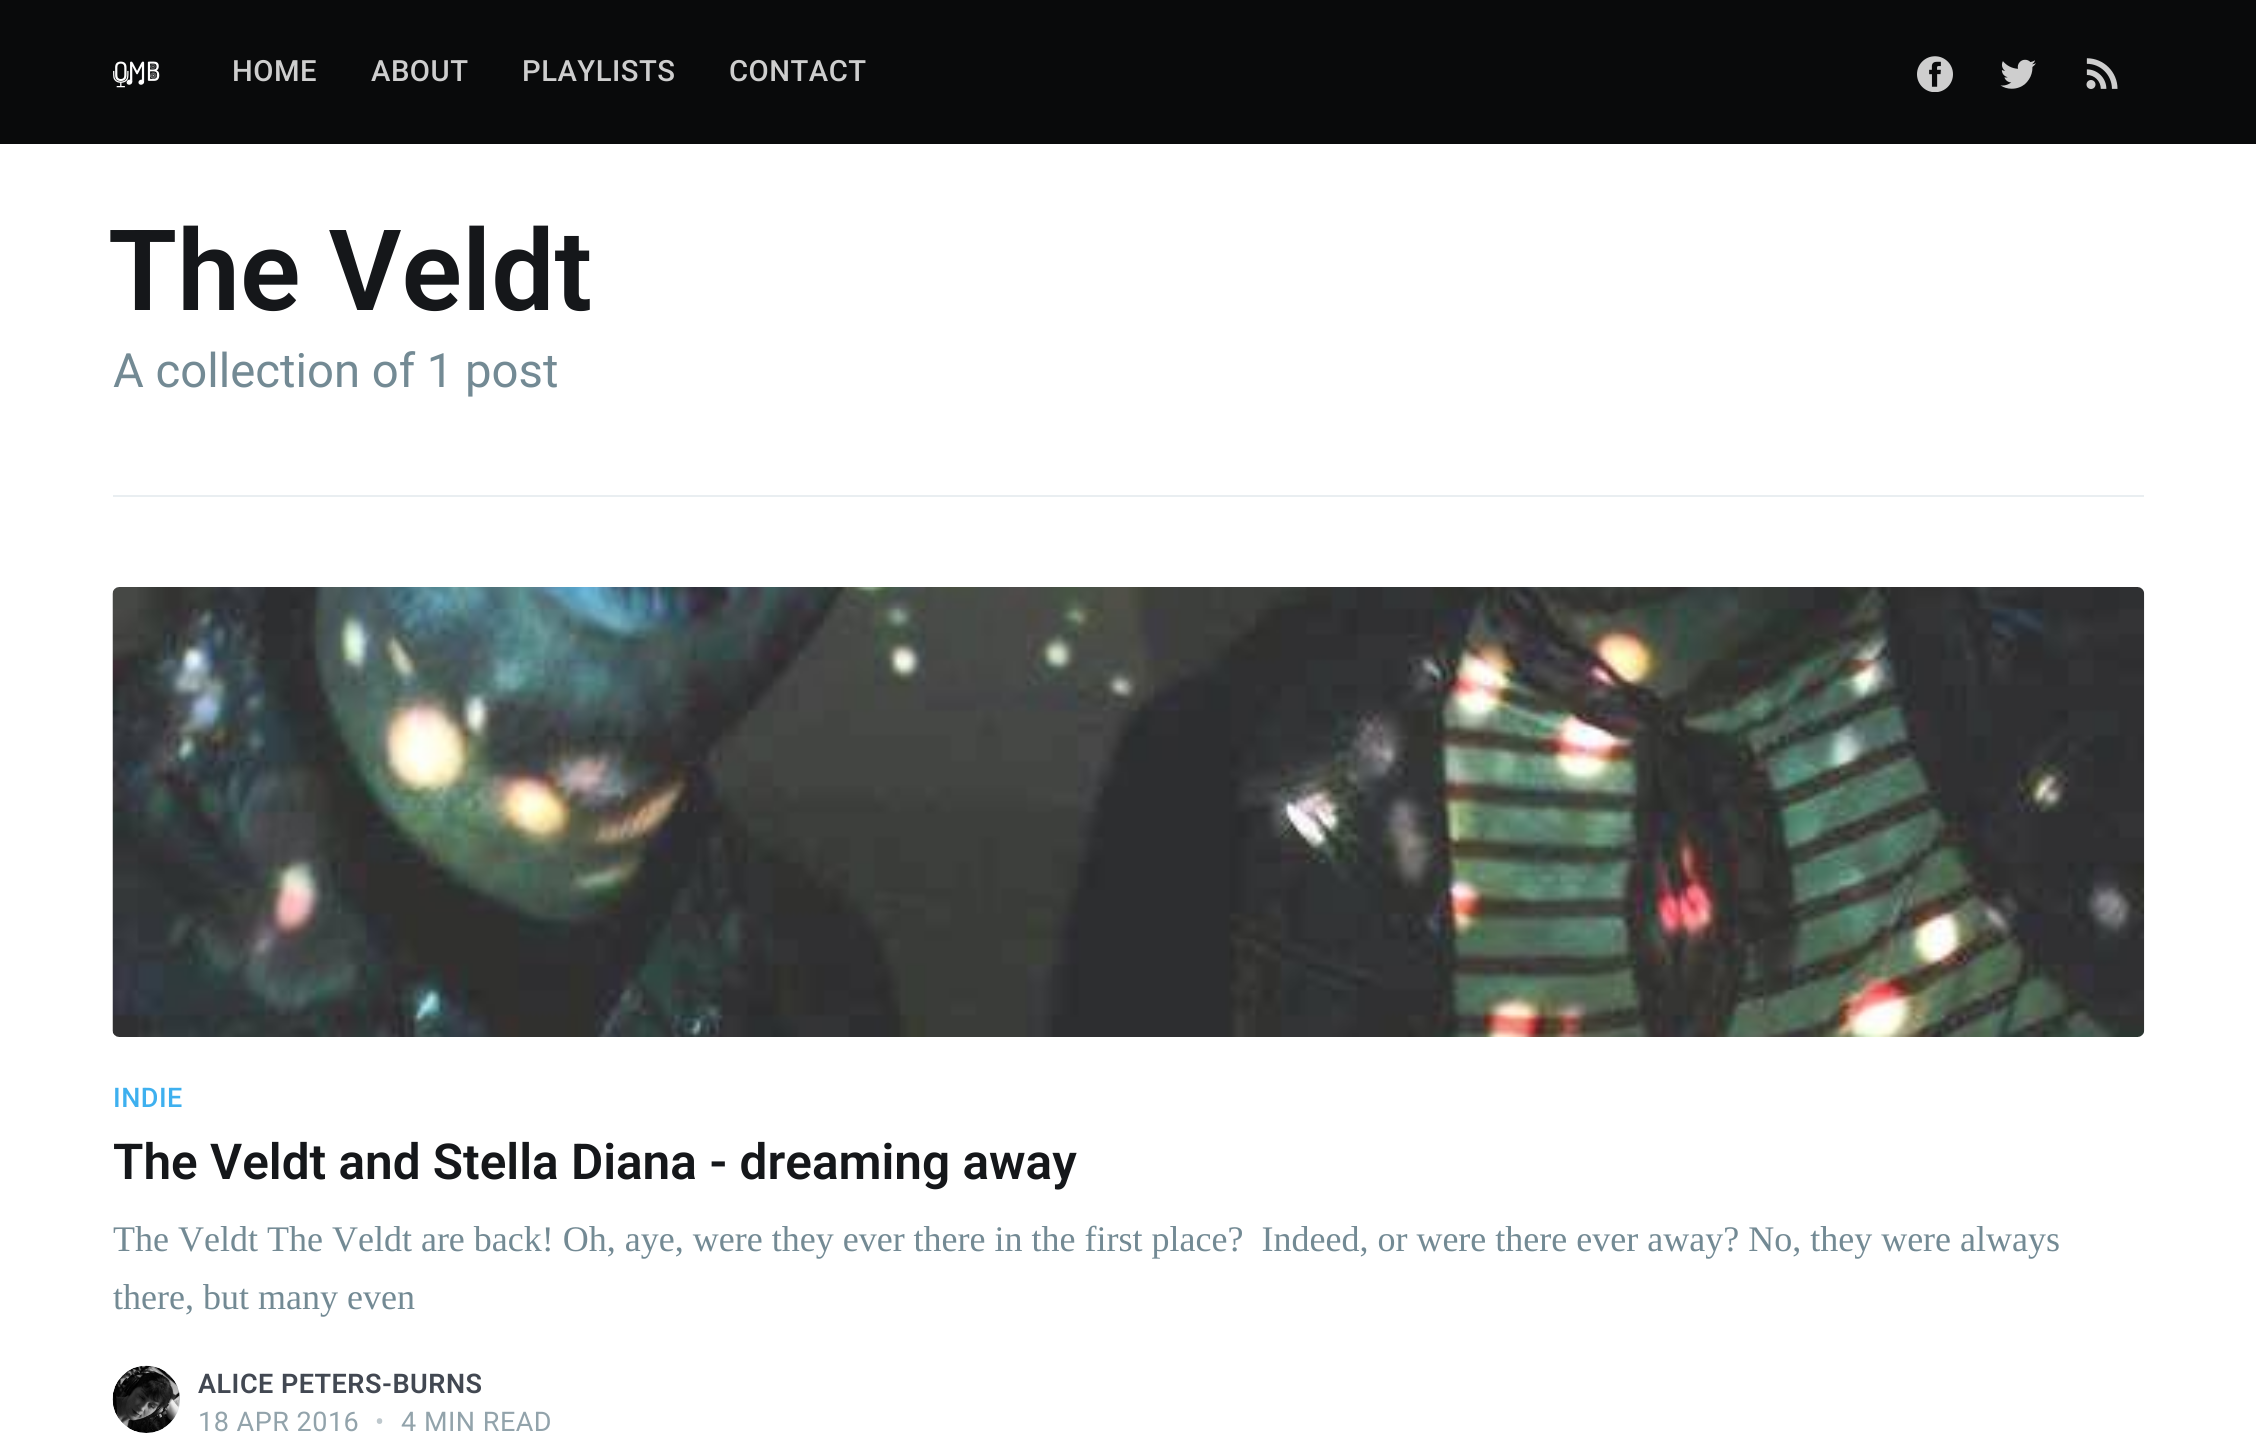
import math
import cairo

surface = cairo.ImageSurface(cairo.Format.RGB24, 2256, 1452)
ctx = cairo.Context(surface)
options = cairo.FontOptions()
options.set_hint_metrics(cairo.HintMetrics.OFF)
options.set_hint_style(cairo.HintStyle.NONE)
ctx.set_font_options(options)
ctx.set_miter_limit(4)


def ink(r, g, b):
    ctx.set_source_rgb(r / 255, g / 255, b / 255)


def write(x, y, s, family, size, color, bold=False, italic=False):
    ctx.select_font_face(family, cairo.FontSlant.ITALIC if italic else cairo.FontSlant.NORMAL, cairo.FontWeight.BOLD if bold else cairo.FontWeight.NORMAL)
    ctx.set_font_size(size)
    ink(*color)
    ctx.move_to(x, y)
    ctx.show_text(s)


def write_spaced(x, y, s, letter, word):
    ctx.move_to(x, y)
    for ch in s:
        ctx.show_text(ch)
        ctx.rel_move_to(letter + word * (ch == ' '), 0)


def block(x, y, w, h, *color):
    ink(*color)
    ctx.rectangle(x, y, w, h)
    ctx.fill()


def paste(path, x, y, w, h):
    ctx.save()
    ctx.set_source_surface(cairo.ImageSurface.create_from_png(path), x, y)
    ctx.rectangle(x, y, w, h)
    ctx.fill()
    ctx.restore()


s1 = dict(family="Roboto SemiBold", size=112.5, color=(21, 23, 26))
s2 = dict(family="Roboto", size=47.25, color=(115, 138, 148))
s3 = dict(family="Roboto SemiBold", size=49.5, color=(21, 23, 26))
s4 = dict(family="Liberation Serif", size=36, color=(115, 138, 148))

ink(255, 255, 255)
ctx.paint()
block(0, 0, 2256, 144, 9, 10, 11)
paste("pic1.png", 113, 61, 47, 27)
ctx.select_font_face("Roboto Medium")
ctx.set_font_size(29.25)
ink(206, 206, 206)
write_spaced(232, 81, "HOME", 0.5, 0)
write_spaced(371, 81, "ABOUT", 0.5, 0)
write_spaced(522, 81, "PLAYLISTS", 0.5, 0)
write_spaced(729, 81, "CONTACT", 0.5, 0)
paste("pic2.png", 1917, 56, 36, 36)
paste("pic3.png", 2000, 59, 36, 30)
paste("pic4.png", 2086, 58, 32, 31)
block(113, 495, 2031, 2, 233, 238, 241)
write(108, 310, "The Veldt", **s1)
write(113, 387, "A collection of 1 post", **s2)
paste("pic5.png", 112, 587, 2033, 450)
ctx.select_font_face("Roboto Medium")
ctx.set_font_size(27)
ink(62, 176, 239)
write_spaced(113, 1107, "INDIE", 0.5, 0)
write(113, 1179, "The Veldt and Stella Diana - dreaming away", **s3)
write(113, 1251, "The Veldt The Veldt are back! Oh, aye, were they ever there in the first place?  Indeed, or were there ever away? No, they were always", **s4)
write(113, 1309, "there, but many even", **s4)
ink(227, 233, 237)
ctx.new_path()
ctx.arc(146.5, 1399.5, 33.5, 0, 2 * math.pi)
ctx.fill()
paste("pic6.png", 112, 1365, 68, 68)
ctx.select_font_face("Roboto SemiBold")
ctx.set_font_size(27)
ink(66, 72, 82)
write_spaced(198, 1393, "ALICE PETERS-BURNS", 0.5, 0)
ctx.select_font_face("Roboto")
ink(146, 163, 171)
write_spaced(198, 1431, "18 APR 2016", 0.5, 0)
ink(190, 200, 205)
write_spaced(375, 1431, "•", 0.5, 0)
ink(146, 163, 171)
write_spaced(401, 1431, "4 MIN READ", 0.5, 0)
surface.write_to_png("screenshot.png")
